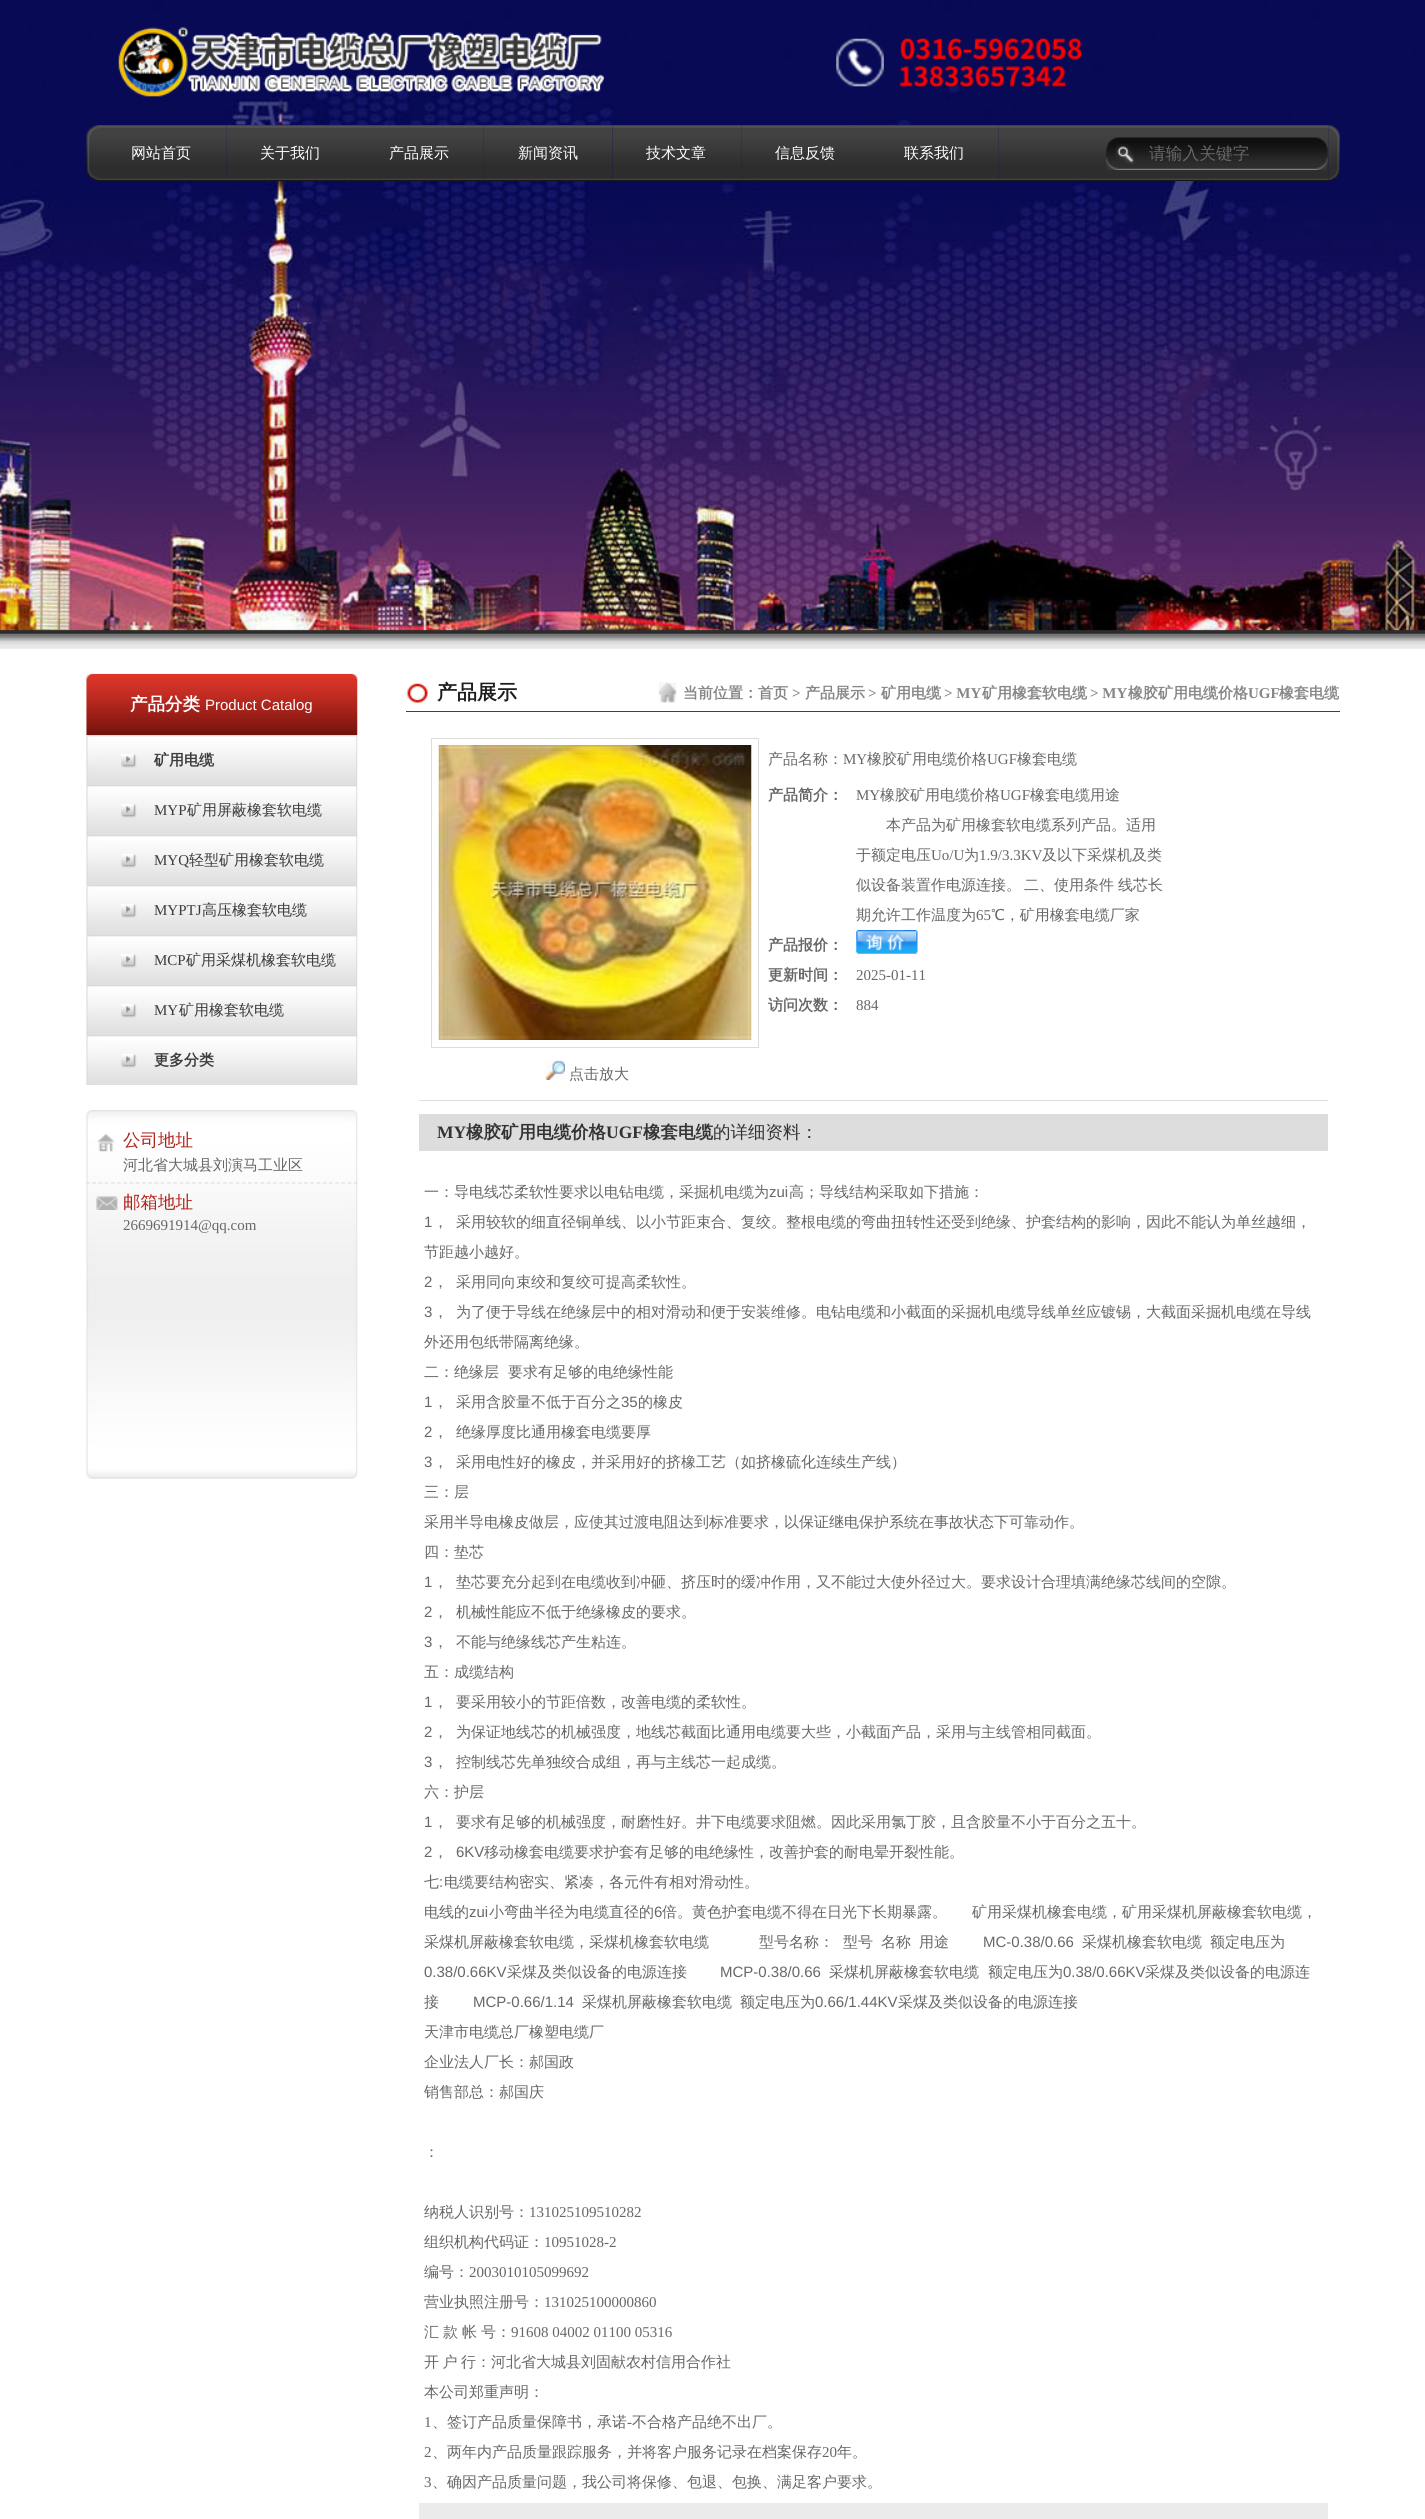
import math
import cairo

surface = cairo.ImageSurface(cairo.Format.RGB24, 1425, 2519)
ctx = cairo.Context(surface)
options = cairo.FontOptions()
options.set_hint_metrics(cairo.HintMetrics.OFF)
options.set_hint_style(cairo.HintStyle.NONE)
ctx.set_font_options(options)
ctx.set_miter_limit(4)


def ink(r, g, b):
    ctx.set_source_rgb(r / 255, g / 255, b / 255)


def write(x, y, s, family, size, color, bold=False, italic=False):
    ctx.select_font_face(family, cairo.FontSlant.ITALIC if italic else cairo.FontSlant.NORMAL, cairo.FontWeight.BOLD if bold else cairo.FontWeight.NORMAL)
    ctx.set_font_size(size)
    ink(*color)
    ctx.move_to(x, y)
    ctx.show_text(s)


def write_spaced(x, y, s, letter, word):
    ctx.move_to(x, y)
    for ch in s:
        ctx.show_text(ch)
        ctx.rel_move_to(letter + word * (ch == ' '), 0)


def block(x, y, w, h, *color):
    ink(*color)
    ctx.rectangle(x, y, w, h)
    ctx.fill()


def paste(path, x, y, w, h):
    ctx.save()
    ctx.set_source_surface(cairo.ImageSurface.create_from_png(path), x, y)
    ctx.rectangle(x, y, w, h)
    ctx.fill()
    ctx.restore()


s1 = dict(family="WenQuanYi Zen Hei Medium", size=15, color=(255, 255, 255))
s2 = dict(family="WenQuanYi Zen Hei Medium", size=16.75, color=(103, 103, 103))
s3 = dict(family="WenQuanYi Zen Hei", size=17.5, color=(255, 255, 255), bold=True)
s4 = dict(family="Liberation Sans", size=15, color=(255, 255, 255))
s5 = dict(family="WenQuanYi Zen Hei", size=15, color=(60, 60, 60), bold=True)
s6 = dict(family="Liberation Serif", size=15, color=(60, 60, 60))
s7 = dict(family="WenQuanYi Zen Hei Medium", size=15, color=(60, 60, 60))
s8 = dict(family="WenQuanYi Zen Hei Medium", size=17.5, color=(175, 31, 23))
s9 = dict(family="WenQuanYi Zen Hei Medium", size=15, color=(103, 103, 103))
s10 = dict(family="Liberation Serif", size=15, color=(103, 103, 103))
s11 = dict(family="WenQuanYi Zen Hei", size=20, color=(30, 30, 30), bold=True)
s12 = dict(family="WenQuanYi Zen Hei", size=15, color=(135, 135, 135), bold=True)
s13 = dict(family="Liberation Serif", size=15, color=(135, 135, 135), bold=True)
s14 = dict(family="WenQuanYi Zen Hei", size=15, color=(103, 103, 103), bold=True)
s15 = dict(family="Liberation Serif", size=17.5, color=(51, 51, 51), bold=True)
s16 = dict(family="WenQuanYi Zen Hei", size=17.5, color=(51, 51, 51), bold=True)
s17 = dict(family="WenQuanYi Zen Hei Medium", size=17.5, color=(51, 51, 51))
s18 = dict(family="Liberation Sans", size=15, color=(103, 103, 103))

ink(255, 255, 255)
ctx.paint()
paste("pic1.png", 0, 0, 1425, 649)
paste("pic2.png", 118, 27, 964, 70)
paste("pic3.png", 86, 125, 13, 56)
paste("pic4.png", 97, 125, 130, 57)
write(131, 158, "网站首页", **s1)
paste("pic5.png", 226, 125, 129, 57)
write(260, 158, "关于我们", **s1)
paste("pic6.png", 355, 125, 129, 57)
write(389, 158, "产品展示", **s1)
paste("pic7.png", 483, 125, 130, 57)
write(518, 158, "新闻资讯", **s1)
paste("pic8.png", 612, 125, 130, 57)
write(646, 158, "技术文章", **s1)
paste("pic9.png", 741, 125, 129, 57)
write(775, 158, "信息反馈", **s1)
paste("pic10.png", 870, 125, 129, 57)
write(904, 158, "联系我们", **s1)
paste("pic11.png", 1328, 125, 12, 57)
paste("pic12.png", 998, 125, 331, 57)
paste("pic13.png", 1106, 137, 222, 33)
paste("pic14.png", 1115, 144, 20, 20)
write(1149, 159, "请输入关键字", **s2)
paste("pic15.png", 86, 673, 272, 62)
write(130, 710, "产品分类", **s3)
write(205, 710, "Product Catalog", **s4)
paste("pic16.png", 86, 735, 272, 50)
paste("pic17.png", 121, 754, 16, 14)
write(154, 765, "矿用电缆", **s5)
paste("pic16.png", 86, 785, 272, 50)
paste("pic17.png", 121, 804, 16, 14)
write(154, 815, "MYP", **s6)
write(187, 815, "矿用屏蔽橡套软电缆", **s7)
paste("pic16.png", 86, 835, 272, 50)
paste("pic17.png", 121, 854, 16, 14)
write(154, 865, "MYQ", **s6)
write(189, 865, "轻型矿用橡套软电缆", **s7)
paste("pic16.png", 86, 885, 272, 50)
paste("pic17.png", 121, 904, 16, 14)
write(154, 915, "MYPTJ", **s6)
write(202, 915, "高压橡套软电缆", **s7)
paste("pic16.png", 86, 935, 272, 50)
paste("pic17.png", 121, 954, 16, 14)
write(154, 965, "MCP", **s6)
write(186, 965, "矿用采煤机橡套软电缆", **s7)
paste("pic16.png", 86, 985, 272, 50)
paste("pic17.png", 121, 1004, 16, 14)
write(154, 1015, "MY", **s6)
write(179, 1015, "矿用橡套软电缆", **s7)
paste("pic16.png", 86, 1035, 272, 50)
paste("pic17.png", 121, 1054, 16, 14)
write(154, 1065, "更多分类", **s5)
paste("pic18.png", 86, 1110, 272, 369)
paste("pic19.png", 97, 1133, 17, 19)
ctx.new_path()
ctx.move_to(86, 1183)
ctx.line_to(357.5, 1183)
ink(224, 224, 224)
ctx.set_line_width(1.2)
ctx.set_dash([3.75, 2.48])
ctx.stroke()
write(123, 1146, "公司地址", **s8)
write(123, 1170, "河北省大城县刘演马工业区", **s9)
paste("pic20.png", 96, 1196, 22, 14)
write(123, 1208, "邮箱地址", **s8)
write(123, 1230, "2669691914@qq.com", **s10)
paste("pic21.png", 407, 683, 21, 20)
block(406, 711, 934, 1, 65, 64, 64)
write(437, 699, "产品展示", **s11)
paste("pic22.png", 658, 682, 19, 21)
write(683, 698, "当前位置：首页", **s12)
write(792, 698, ">", **s13)
write(805, 698, "产品展示", **s12)
write(868, 698, ">", **s13)
write(881, 698, "矿用电缆", **s12)
write(944, 698, "> MY", **s13)
write(982, 698, "矿用橡套软电缆", **s12)
write(1090, 698, "> MY", **s13)
write(1128, 698, "橡胶矿用电缆价格", **s12)
write(1248, 698, "UGF", **s13)
write(1279, 698, "橡套电缆", **s12)
block(419, 1100, 909, 1, 221, 221, 221)
write(768, 764, "产品名称：", **s9)
write(843, 764, "MY", **s10)
write(867, 764, "橡胶矿用电缆价格", **s9)
write(987, 764, "UGF", **s10)
write(1017, 764, "橡套电缆", **s9)
write(768, 800, "产品简介：", **s14)
write(856, 800, "MY", **s10)
write(880, 800, "橡胶矿用电缆价格", **s9)
write(1000, 800, "UGF", **s10)
write(1030, 800, "橡套电缆用途", **s9)
write(886, 830, "本产品为矿用橡套软电缆系列产品。适用", **s9)
write(856, 860, "于额定电压", **s9)
write(931, 860, "Uo/U", **s10)
write(964, 860, "为", **s9)
write(979, 860, "1.9/3.3KV", **s10)
write(1042, 860, "及以下采煤机及类", **s9)
write(856, 890, "似设备装置作电源连接。", **s9)
write(1024, 890, "二、使用条件", **s9)
write(1118, 890, "线芯长", **s9)
write(856, 920, "期允许工作温度为", **s9)
write(976, 920, "65", **s10)
write(991, 920, "℃，矿用橡套电缆厂家", **s9)
write(768, 950, "产品报价：", **s14)
paste("pic23.png", 856, 930, 62, 24)
write(768, 980, "更新时间：", **s14)
write(856, 980, "2025-01-11", **s10)
write(768, 1010, "访问次数：", **s14)
write(856, 1010, "884", **s10)
ctx.rectangle(431.5, 738.5, 327, 309)
ink(221, 221, 221)
ctx.set_line_width(1)
ctx.set_dash([])
ctx.stroke()
paste("pic24.png", 438, 745, 314, 295)
paste("pic25.png", 545, 1060, 20, 20)
write(569, 1079, "点击放大", **s9)
block(419, 1114, 909, 37, 221, 221, 221)
write(437, 1138, "MY", **s15)
write(466, 1138, "橡胶矿用电缆价格", **s16)
write(606, 1138, "UGF", **s15)
write(643, 1138, "橡套电缆", **s16)
write(713, 1138, "的详细资料：", **s17)
write(424, 1197, "一：导电线芯柔软性要求以电钻电缆，采掘机电缆为", **s9)
write(769, 1197, "zui", **s18)
write(789, 1197, "高；导线结构采取如下措施：", **s9)
write(424, 1227, "1", **s18)
write(433, 1227, "，", **s9)
write(456, 1227, "采用较软的细直径铜单线、以小节距束合、复绞。整根电缆的弯曲扭转性还受到绝缘、护套结构的影响，因此不能认为单丝越细，", **s9)
write(424, 1257, "节距越小越好。", **s9)
write(424, 1287, "2", **s18)
write(433, 1287, "，", **s9)
write(456, 1287, "采用同向束绞和复绞可提高柔软性。", **s9)
write(424, 1317, "3", **s18)
write(433, 1317, "，", **s9)
write(456, 1317, "为了便于导线在绝缘层中的相对滑动和便于安装维修。电钻电缆和小截面的采掘机电缆导线单丝应镀锡，大截面采掘机电缆在导线", **s9)
write(424, 1347, "外还用包纸带隔离绝缘。", **s9)
write(424, 1377, "二：绝缘层", **s9)
write(508, 1377, "要求有足够的电绝缘性能", **s9)
write(424, 1407, "1", **s18)
write(433, 1407, "，", **s9)
write(456, 1407, "采用含胶量不低于百分之", **s9)
write(621, 1407, "35", **s18)
write(638, 1407, "的橡皮", **s9)
write(424, 1437, "2", **s18)
write(433, 1437, "，", **s9)
write(456, 1437, "绝缘厚度比通用橡套电缆要厚", **s9)
write(424, 1467, "3", **s18)
write(433, 1467, "，", **s9)
write(456, 1467, "采用电性好的橡皮，并采用好的挤橡工艺（如挤橡硫化连续生产线）", **s9)
write(424, 1497, "三：层", **s9)
write(424, 1527, "采用半导电橡皮做层，应使其过渡电阻达到标准要求，以保证继电保护系统在事故状态下可靠动作。", **s9)
write(424, 1557, "四：垫芯", **s9)
write(424, 1587, "1", **s18)
write(433, 1587, "，", **s9)
write(456, 1587, "垫芯要充分起到在电缆收到冲砸、挤压时的缓冲作用，又不能过大使外径过大。要求设计合理填满绝缘芯线间的空隙。", **s9)
write(424, 1617, "2", **s18)
write(433, 1617, "，", **s9)
write(456, 1617, "机械性能应不低于绝缘橡皮的要求。", **s9)
write(424, 1647, "3", **s18)
write(433, 1647, "，", **s9)
write(456, 1647, "不能与绝缘线芯产生粘连。", **s9)
write(424, 1677, "五：成缆结构", **s9)
write(424, 1707, "1", **s18)
write(433, 1707, "，", **s9)
write(456, 1707, "要采用较小的节距倍数，改善电缆的柔软性。", **s9)
write(424, 1737, "2", **s18)
write(433, 1737, "，", **s9)
write(456, 1737, "为保证地线芯的机械强度，地线芯截面比通用电缆要大些，小截面产品，采用与主线管相同截面。", **s9)
write(424, 1767, "3", **s18)
write(433, 1767, "，", **s9)
write(456, 1767, "控制线芯先单独绞合成组，再与主线芯一起成缆。", **s9)
write(424, 1797, "六：护层", **s9)
write(424, 1827, "1", **s18)
write(433, 1827, "，", **s9)
write(456, 1827, "要求有足够的机械强度，耐磨性好。井下电缆要求阻燃。因此采用氯丁胶，且含胶量不小于百分之五十。", **s9)
write(424, 1857, "2", **s18)
write(433, 1857, "，", **s9)
write(456, 1857, "6KV", **s18)
write(484, 1857, "移动橡套电缆要求护套有足够的电绝缘性，改善护套的耐电晕开裂性能。", **s9)
write(424, 1887, "七", **s9)
write(439, 1887, ":", **s18)
write(444, 1887, "电缆要结构密实、紧凑，各元件有相对滑动性。", **s9)
write(424, 1917, "电线的", **s9)
write(469, 1917, "zui", **s18)
write(489, 1917, "小弯曲半径为电缆直径的", **s9)
write(654, 1917, "6", **s18)
write(662, 1917, "倍。黄色护套电缆不得在日光下长期暴露。", **s9)
write(972, 1917, "矿用采煤机橡套电缆，矿用采煤机屏蔽橡套软电缆，", **s9)
write(424, 1947, "采煤机屏蔽橡套软电缆，采煤机橡套软电缆", **s9)
write(759, 1947, "型号名称：", **s9)
write(843, 1947, "型号", **s9)
write(881, 1947, "名称", **s9)
write(919, 1947, "用途", **s9)
write(983, 1947, "MC-0.38/0.66", **s18)
write(1082, 1947, "采煤机橡套软电缆", **s9)
write(1210, 1947, "额定电压为", **s9)
write(424, 1977, "0.38/0.66KV", **s18)
write(507, 1977, "采煤及类似设备的电源连接", **s9)
write(720, 1977, "MCP-0.38/0.66", **s18)
write(829, 1977, "采煤机屏蔽橡套软电缆", **s9)
write(988, 1977, "额定电压为", **s9)
write(1063, 1977, "0.38/0.66KV", **s18)
write(1145, 1977, "采煤及类似设备的电源连", **s9)
write(424, 2007, "接", **s9)
write(473, 2007, "MCP-0.66/1.14", **s18)
write(582, 2007, "采煤机屏蔽橡套软电缆", **s9)
write(740, 2007, "额定电压为", **s9)
write(815, 2007, "0.66/1.44KV", **s18)
write(898, 2007, "采煤及类似设备的电源连接", **s9)
write(424, 2037, "天津市电缆总厂橡塑电缆厂", **s9)
write(424, 2067, "企业法人厂长：郝国政", **s9)
write(424, 2097, "销售部总：郝国庆", **s9)
write(424, 2157, "：", **s9)
write(424, 2217, "纳税人识别号：", **s9)
write(529, 2217, "131025109510282", **s10)
write(424, 2247, "组织机构代码证：", **s9)
write(544, 2247, "10951028-2", **s10)
write(424, 2277, "编号：", **s9)
write(469, 2277, "2003010105099692", **s10)
write(424, 2307, "营业执照注册号：", **s9)
write(544, 2307, "131025100000860", **s10)
write(424, 2337, "汇", **s9)
write(443, 2337, "款", **s9)
write(462, 2337, "帐", **s9)
write(481, 2337, "号：", **s9)
write(511, 2337, "91608 04002 01100 05316", **s10)
ctx.select_font_face("WenQuanYi Zen Hei Medium")
write_spaced(424, 2367, "开 户 行：河北省大城县刘固献农村信用合作社", 0, -1)
write(424, 2397, "本公司郑重声明：", **s9)
write(424, 2427, "1", **s10)
write(432, 2427, "、签订产品质量保障书，承诺", **s9)
write(627, 2427, "-", **s10)
write(632, 2427, "不合格产品绝不出厂。", **s9)
write(424, 2457, "2", **s10)
write(432, 2457, "、两年内产品质量跟踪服务，并将客户服务记录在档案保存", **s9)
write(822, 2457, "20", **s10)
write(837, 2457, "年。", **s9)
write(424, 2487, "3", **s10)
write(432, 2487, "、确因产品质量问题，我公司将保修、包退、包换、满足客户要求。", **s9)
block(419, 2503, 909, 16, 235, 235, 235)
surface.write_to_png("screenshot.png")
